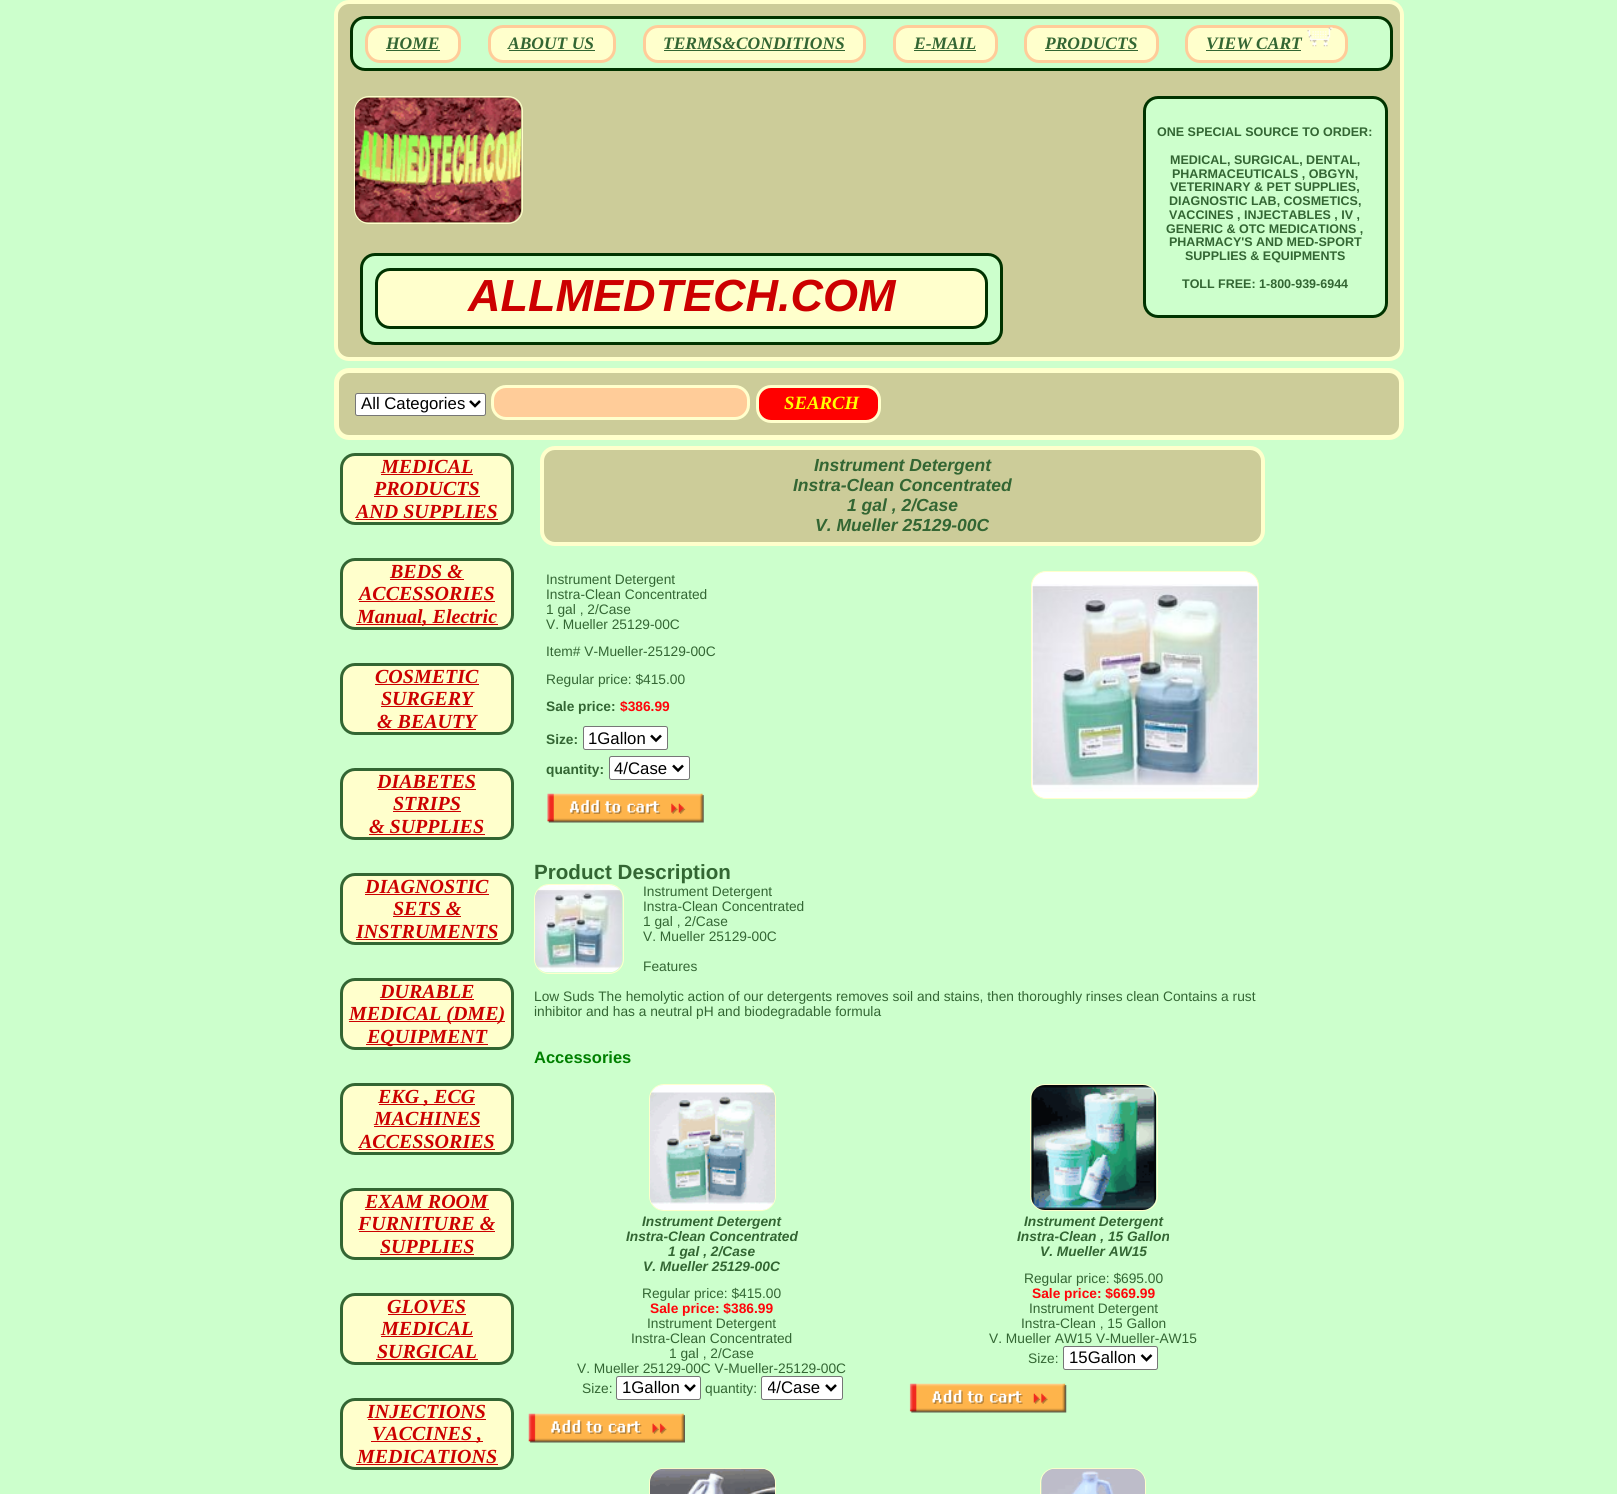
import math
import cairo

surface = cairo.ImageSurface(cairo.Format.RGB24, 1617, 1494)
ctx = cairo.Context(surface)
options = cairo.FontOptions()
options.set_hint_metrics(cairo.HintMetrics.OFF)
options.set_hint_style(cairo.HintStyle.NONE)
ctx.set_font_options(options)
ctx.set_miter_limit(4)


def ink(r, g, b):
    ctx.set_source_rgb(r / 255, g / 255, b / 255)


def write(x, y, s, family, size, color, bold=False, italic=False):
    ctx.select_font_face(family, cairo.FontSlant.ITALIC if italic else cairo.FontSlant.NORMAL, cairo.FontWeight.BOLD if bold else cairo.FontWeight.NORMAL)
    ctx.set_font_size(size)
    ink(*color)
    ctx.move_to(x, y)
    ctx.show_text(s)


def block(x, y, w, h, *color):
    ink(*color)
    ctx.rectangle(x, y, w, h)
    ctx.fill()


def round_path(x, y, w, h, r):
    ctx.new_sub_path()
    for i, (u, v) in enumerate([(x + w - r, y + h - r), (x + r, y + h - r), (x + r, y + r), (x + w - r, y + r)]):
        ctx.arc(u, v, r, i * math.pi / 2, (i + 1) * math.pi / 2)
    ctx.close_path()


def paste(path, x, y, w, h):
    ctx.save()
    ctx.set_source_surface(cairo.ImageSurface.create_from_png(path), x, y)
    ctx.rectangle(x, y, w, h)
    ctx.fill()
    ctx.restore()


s1 = dict(family="Liberation Serif", size=17.5, color=(51, 102, 51), bold=True, italic=True)
s2 = dict(family="Liberation Sans", size=12.5, color=(51, 102, 51), bold=True)
s3 = dict(family="Liberation Sans", size=45, color=(204, 0, 0), bold=True, italic=True)
s4 = dict(family="Liberation Sans", size=16.75, color=(0, 0, 0))
s5 = dict(family="Liberation Serif", size=18.75, color=(255, 255, 0), bold=True, italic=True)
s6 = dict(family="Liberation Serif", size=20, color=(204, 0, 0), bold=True, italic=True)
s7 = dict(family="Liberation Sans", size=17.5, color=(51, 102, 51), bold=True, italic=True)
s8 = dict(family="Liberation Sans", size=13.75, color=(51, 102, 51))
s9 = dict(family="Liberation Sans", size=13.75, color=(51, 102, 51), bold=True)
s10 = dict(family="Liberation Sans", size=13.75, color=(255, 5, 10), bold=True)
s11 = dict(family="Liberation Sans", size=20.6, color=(51, 102, 51), bold=True)
s12 = dict(family="Liberation Sans", size=16.5, color=(0, 128, 0), bold=True)
s13 = dict(family="Liberation Sans", size=13.75, color=(51, 102, 51), bold=True, italic=True)

ink(204, 255, 204)
ctx.paint()
ink(204, 204, 153)
round_path(336, 2, 1066, 357, 13)
ctx.fill_preserve()
ink(255, 255, 204)
ctx.set_line_width(4)
ctx.stroke()
ink(204, 255, 204)
round_path(351.5, 17.5, 1040, 52, 13.5)
ctx.fill_preserve()
ink(0, 51, 0)
ctx.set_line_width(3)
ctx.stroke()
ink(255, 255, 204)
round_path(366.5, 26.5, 93, 35, 13.5)
ctx.fill_preserve()
ink(255, 204, 153)
ctx.stroke()
write(386, 49, "HOME", **s1)
block(386, 50, 54, 1, 51, 102, 51)
ink(255, 255, 204)
round_path(489.5, 26.5, 125, 35, 13.5)
ctx.fill_preserve()
ink(255, 204, 153)
ctx.stroke()
write(508, 49, "ABOUT US", **s1)
block(509, 50, 86, 1, 51, 102, 51)
ink(255, 255, 204)
round_path(644.5, 26.5, 220, 35, 13.5)
ctx.fill_preserve()
ink(255, 204, 153)
ctx.stroke()
write(663, 49, "TERMS&CONDITIONS", **s1)
block(664, 50, 181, 1, 51, 102, 51)
ink(255, 255, 204)
round_path(894.5, 26.5, 102, 35, 13.5)
ctx.fill_preserve()
ink(255, 204, 153)
ctx.stroke()
write(914, 49, "E-MAIL", **s1)
block(914, 50, 62, 1, 51, 102, 51)
ink(255, 255, 204)
round_path(1025.5, 26.5, 132, 35, 13.5)
ctx.fill_preserve()
ink(255, 204, 153)
ctx.stroke()
write(1045, 49, "PRODUCTS", **s1)
block(1045, 50, 93, 1, 51, 102, 51)
ink(255, 255, 204)
round_path(1186.5, 26.5, 160, 35, 13.5)
ctx.fill_preserve()
ink(255, 204, 153)
ctx.stroke()
paste("pic1.png", 1307, 27, 26, 20)
write(1206, 49, "VIEW CART", **s1)
block(1206, 50, 95, 1, 51, 102, 51)
ink(205, 255, 204)
round_path(1144.5, 97.5, 242, 219, 13.5)
ctx.fill_preserve()
ink(0, 51, 0)
ctx.stroke()
write(1157, 136, "ONE SPECIAL SOURCE TO ORDER:", **s2)
write(1170, 164, "MEDICAL, SURGICAL, DENTAL,", **s2)
write(1172, 178, "PHARMACEUTICALS , OBGYN,", **s2)
write(1170, 191, "VETERINARY & PET SUPPLIES,", **s2)
write(1169, 205, "DIAGNOSTIC LAB, COSMETICS,", **s2)
write(1169, 219, "VACCINES , INJECTABLES , IV ,", **s2)
write(1166, 233, "GENERIC & OTC MEDICATIONS ,", **s2)
write(1169, 246, "PHARMACY'S AND MED-SPORT", **s2)
write(1185, 260, "SUPPLIES & EQUIPMENTS", **s2)
write(1182, 288, "TOLL FREE: 1-800-939-6944", **s2)
round_path(354.5, 96.5, 168, 127, 14.5)
ink(255, 255, 204)
ctx.set_line_width(1)
ctx.stroke()
paste("pic2.png", 355, 97, 167, 126)
ink(204, 255, 204)
round_path(361.5, 254.5, 640, 89, 13.5)
ctx.fill_preserve()
ink(0, 51, 0)
ctx.set_line_width(3)
ctx.stroke()
ink(255, 255, 204)
round_path(376.5, 269.5, 610, 58, 13.5)
ctx.fill_preserve()
ink(0, 51, 0)
ctx.stroke()
write(468, 311, "ALLMEDTECH.COM", **s3)
ink(204, 204, 153)
round_path(336.5, 370.5, 1065, 67, 12.5)
ctx.fill_preserve()
ink(255, 255, 204)
ctx.set_line_width(5)
ctx.stroke()
ink(255, 255, 255)
round_path(355.5, 393.5, 130, 22, 2)
ctx.fill_preserve()
ink(118, 118, 118)
ctx.set_line_width(1)
ctx.stroke()
ctx.new_path()
ctx.move_to(470, 401)
ctx.line_to(475, 406)
ctx.line_to(480, 401)
ink(0, 0, 0)
ctx.set_line_width(2.5)
ctx.stroke()
write(361, 409, "All Categories", **s4)
ink(255, 204, 153)
round_path(492.5, 386.5, 256, 32, 13.5)
ctx.fill_preserve()
ink(255, 255, 204)
ctx.set_line_width(3)
ctx.stroke()
ink(255, 0, 0)
round_path(757.5, 386.5, 122, 35, 13.5)
ctx.fill_preserve()
ink(255, 255, 204)
ctx.stroke()
write(784, 409, "SEARCH", **s5)
ink(255, 255, 204)
round_path(341.5, 454.5, 171, 69, 13.5)
ctx.fill_preserve()
ink(51, 102, 51)
ctx.stroke()
write(381, 473, "MEDICAL", **s6)
block(381, 474, 92, 1, 204, 0, 0)
write(374, 495, "PRODUCTS", **s6)
block(374, 496, 106, 1, 204, 0, 0)
write(356, 518, "AND SUPPLIES", **s6)
block(356, 519, 142, 1, 204, 0, 0)
ink(255, 255, 204)
round_path(341.5, 559.5, 171, 69, 13.5)
ctx.fill_preserve()
ink(51, 102, 51)
ctx.stroke()
write(390, 578, "BEDS &", **s6)
block(390, 579, 74, 1, 204, 0, 0)
write(359, 600, "ACCESSORIES", **s6)
block(359, 601, 136, 1, 204, 0, 0)
block(356, 624, 142, 1, 204, 0, 0)
write(357, 623, "Manual, Electric", **s6)
ink(255, 255, 204)
round_path(341.5, 664.5, 171, 69, 13.5)
ctx.fill_preserve()
ink(51, 102, 51)
ctx.stroke()
write(375, 683, "COSMETIC", **s6)
block(375, 684, 104, 1, 204, 0, 0)
write(381, 705, "SURGERY", **s6)
block(381, 706, 92, 1, 204, 0, 0)
write(377, 728, "& BEAUTY", **s6)
block(378, 729, 98, 1, 204, 0, 0)
ink(255, 255, 204)
round_path(341.5, 769.5, 171, 69, 13.5)
ctx.fill_preserve()
ink(51, 102, 51)
ctx.stroke()
write(377, 788, "DIABETES", **s6)
block(378, 789, 98, 1, 204, 0, 0)
write(393, 810, "STRIPS", **s6)
block(393, 811, 68, 1, 204, 0, 0)
write(369, 833, "& SUPPLIES", **s6)
block(369, 834, 116, 1, 204, 0, 0)
ink(255, 255, 204)
round_path(341.5, 874.5, 171, 69, 13.5)
ctx.fill_preserve()
ink(51, 102, 51)
ctx.stroke()
write(365, 893, "DIAGNOSTIC", **s6)
block(365, 894, 124, 1, 204, 0, 0)
write(393, 915, "SETS &", **s6)
block(393, 916, 68, 1, 204, 0, 0)
write(356, 938, "INSTRUMENTS", **s6)
block(356, 939, 142, 1, 204, 0, 0)
ink(255, 255, 204)
round_path(341.5, 979.5, 171, 69, 13.5)
ctx.fill_preserve()
ink(51, 102, 51)
ctx.stroke()
write(380, 998, "DURABLE", **s6)
block(380, 999, 94, 1, 204, 0, 0)
block(349, 1021, 156, 1, 204, 0, 0)
write(349, 1020, "MEDICAL (DME)", **s6)
block(366, 1044, 122, 1, 204, 0, 0)
write(367, 1043, "EQUIPMENT", **s6)
ink(255, 255, 204)
round_path(341.5, 1084.5, 171, 69, 13.5)
ctx.fill_preserve()
ink(51, 102, 51)
ctx.stroke()
block(379, 1104, 96, 1, 204, 0, 0)
write(378, 1103, "EKG , ECG", **s6)
write(374, 1125, "MACHINES", **s6)
block(374, 1126, 106, 1, 204, 0, 0)
write(359, 1148, "ACCESSORIES", **s6)
block(359, 1149, 136, 1, 204, 0, 0)
ink(255, 255, 204)
round_path(341.5, 1189.5, 171, 69, 13.5)
ctx.fill_preserve()
ink(51, 102, 51)
ctx.stroke()
write(365, 1208, "EXAM ROOM", **s6)
block(365, 1209, 124, 1, 204, 0, 0)
write(358, 1230, "FURNITURE &", **s6)
block(359, 1231, 136, 1, 204, 0, 0)
write(380, 1253, "SUPPLIES", **s6)
block(380, 1254, 94, 1, 204, 0, 0)
ink(255, 255, 204)
round_path(341.5, 1294.5, 171, 69, 13.5)
ctx.fill_preserve()
ink(51, 102, 51)
ctx.stroke()
write(387, 1313, "GLOVES", **s6)
block(388, 1314, 78, 1, 204, 0, 0)
write(381, 1335, "MEDICAL", **s6)
block(381, 1336, 92, 1, 204, 0, 0)
write(377, 1358, "SURGICAL", **s6)
block(376, 1359, 102, 1, 204, 0, 0)
ink(255, 255, 204)
round_path(341.5, 1399.5, 171, 69, 13.5)
ctx.fill_preserve()
ink(51, 102, 51)
ctx.stroke()
write(367, 1418, "INJECTIONS", **s6)
block(368, 1419, 118, 1, 204, 0, 0)
block(371, 1441, 112, 1, 204, 0, 0)
write(372, 1440, "VACCINES ,", **s6)
write(357, 1463, "MEDICATIONS", **s6)
block(356, 1464, 142, 1, 204, 0, 0)
ink(204, 204, 153)
round_path(542, 448, 721, 96, 13)
ctx.fill_preserve()
ink(255, 255, 204)
ctx.set_line_width(4)
ctx.stroke()
write(814, 471, "Instrument Detergent", **s7)
write(793, 491, "Instra-Clean Concentrated", **s7)
write(847, 511, "1 gal , 2/Case", **s7)
write(815, 531, "V. Mueller 25129-00C", **s7)
write(546, 584, "Instrument Detergent", **s8)
write(546, 599, "Instra-Clean Concentrated", **s8)
write(546, 614, "1 gal , 2/Case", **s8)
write(546, 629, "V. Mueller 25129-00C", **s8)
write(546, 656, "Item# V-Mueller-25129-00C", **s8)
write(546, 684, "Regular price: $415.00", **s8)
write(546, 711, "Sale price:", **s9)
write(620, 711, "$386.99", **s10)
write(546, 744, "Size:", **s9)
ink(255, 255, 255)
round_path(583.5, 726.5, 84, 23, 2)
ctx.fill_preserve()
ink(118, 118, 118)
ctx.set_line_width(1)
ctx.stroke()
ctx.new_path()
ctx.move_to(651, 735.5)
ctx.line_to(656, 740.5)
ctx.line_to(661, 735.5)
ink(0, 0, 0)
ctx.set_line_width(2.5)
ctx.stroke()
write(588, 744, "1Gallon", **s4)
write(546, 774, "quantity:", **s9)
ink(255, 255, 255)
round_path(609.5, 756.5, 80, 23, 2)
ctx.fill_preserve()
ink(118, 118, 118)
ctx.set_line_width(1)
ctx.stroke()
ctx.new_path()
ctx.move_to(673, 765.5)
ctx.line_to(678, 770.5)
ctx.line_to(683, 765.5)
ink(0, 0, 0)
ctx.set_line_width(2.5)
ctx.stroke()
write(614, 774, "4/Case", **s4)
paste("pic3.png", 547, 793, 157, 30)
ink(255, 255, 255)
round_path(1031.5, 571.5, 227, 227, 14.5)
ctx.fill_preserve()
ink(255, 255, 204)
ctx.set_line_width(1)
ctx.stroke()
paste("pic4.png", 1032, 584, 226, 208)
write(534, 879, "Product Description", **s11)
round_path(534.5, 884.5, 89, 89, 14.5)
ink(255, 255, 204)
ctx.stroke()
paste("pic5.png", 535, 885, 88, 88)
write(643, 896, "Instrument Detergent", **s8)
write(643, 911, "Instra-Clean Concentrated", **s8)
write(643, 926, "1 gal , 2/Case", **s8)
write(643, 941, "V. Mueller 25129-00C", **s8)
write(643, 971, "Features", **s8)
write(534, 1001, "Low Suds The hemolytic action of our detergents removes soil and stains, then thoroughly rinses clean Contains a rust", **s8)
write(534, 1016, "inhibitor and has a neutral pH and biodegradable formula", **s8)
write(534, 1063, "Accessories", **s12)
round_path(649.5, 1084.5, 126, 126, 14.5)
ink(255, 255, 204)
ctx.stroke()
paste("pic6.png", 650, 1085, 125, 125)
write(642, 1226, "Instrument Detergent", **s13)
write(626, 1241, "Instra-Clean Concentrated", **s13)
write(668, 1256, "1 gal , 2/Case", **s13)
write(643, 1271, "V. Mueller 25129-00C", **s13)
write(642, 1298, "Regular price: $415.00", **s8)
write(650, 1313, "Sale price: $386.99", **s10)
write(647, 1328, "Instrument Detergent", **s8)
write(631, 1343, "Instra-Clean Concentrated", **s8)
write(669, 1358, "1 gal , 2/Case", **s8)
write(577, 1373, "V. Mueller 25129-00C V-Mueller-25129-00C", **s8)
write(582, 1393, "Size:", **s8)
ink(255, 255, 255)
round_path(616.5, 1376.5, 84, 23, 2)
ctx.fill_preserve()
ink(118, 118, 118)
ctx.stroke()
ctx.new_path()
ctx.move_to(685, 1385)
ctx.line_to(690, 1390)
ctx.line_to(695, 1385)
ink(0, 0, 0)
ctx.set_line_width(2.5)
ctx.stroke()
write(622, 1393, "1Gallon", **s4)
write(705, 1393, "quantity:", **s8)
ink(255, 255, 255)
round_path(761.5, 1376.5, 81, 23, 2)
ctx.fill_preserve()
ink(118, 118, 118)
ctx.set_line_width(1)
ctx.stroke()
ctx.new_path()
ctx.move_to(826, 1385)
ctx.line_to(831, 1390)
ctx.line_to(836, 1385)
ink(0, 0, 0)
ctx.set_line_width(2.5)
ctx.stroke()
ctx.save()
ctx.rectangle(768, 1378, 53, 21)
ctx.clip()
write(767, 1393, "4/Case", **s4)
ctx.restore()
paste("pic7.png", 528, 1413, 157, 30)
round_path(1030.5, 1084.5, 127, 126, 14.5)
ink(255, 255, 204)
ctx.set_line_width(1)
ctx.stroke()
paste("pic8.png", 1031, 1085, 126, 125)
write(1024, 1226, "Instrument Detergent", **s13)
write(1017, 1241, "Instra-Clean , 15 Gallon", **s13)
write(1040, 1256, "V. Mueller AW15", **s13)
write(1024, 1283, "Regular price: $695.00", **s8)
write(1032, 1298, "Sale price: $669.99", **s10)
write(1029, 1313, "Instrument Detergent", **s8)
write(1021, 1328, "Instra-Clean , 15 Gallon", **s8)
write(989, 1343, "V. Mueller AW15 V-Mueller-AW15", **s8)
write(1028, 1363, "Size:", **s8)
ink(255, 255, 255)
round_path(1063.5, 1346.5, 94, 23, 2)
ctx.fill_preserve()
ink(118, 118, 118)
ctx.stroke()
ctx.new_path()
ctx.move_to(1141.5, 1355)
ctx.line_to(1146.5, 1360)
ctx.line_to(1151.5, 1355)
ink(0, 0, 0)
ctx.set_line_width(2.5)
ctx.stroke()
write(1069, 1363, "15Gallon", **s4)
paste("pic9.png", 909, 1383, 158, 30)
round_path(649.5, 1468.5, 126, 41, 14.5)
ink(255, 255, 204)
ctx.set_line_width(1)
ctx.stroke()
paste("pic10.png", 650, 1468, 125, 26)
round_path(1040.5, 1468.5, 105, 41, 14.5)
ctx.stroke()
paste("pic11.png", 1041, 1468, 104, 26)
surface.write_to_png("screenshot.png")
